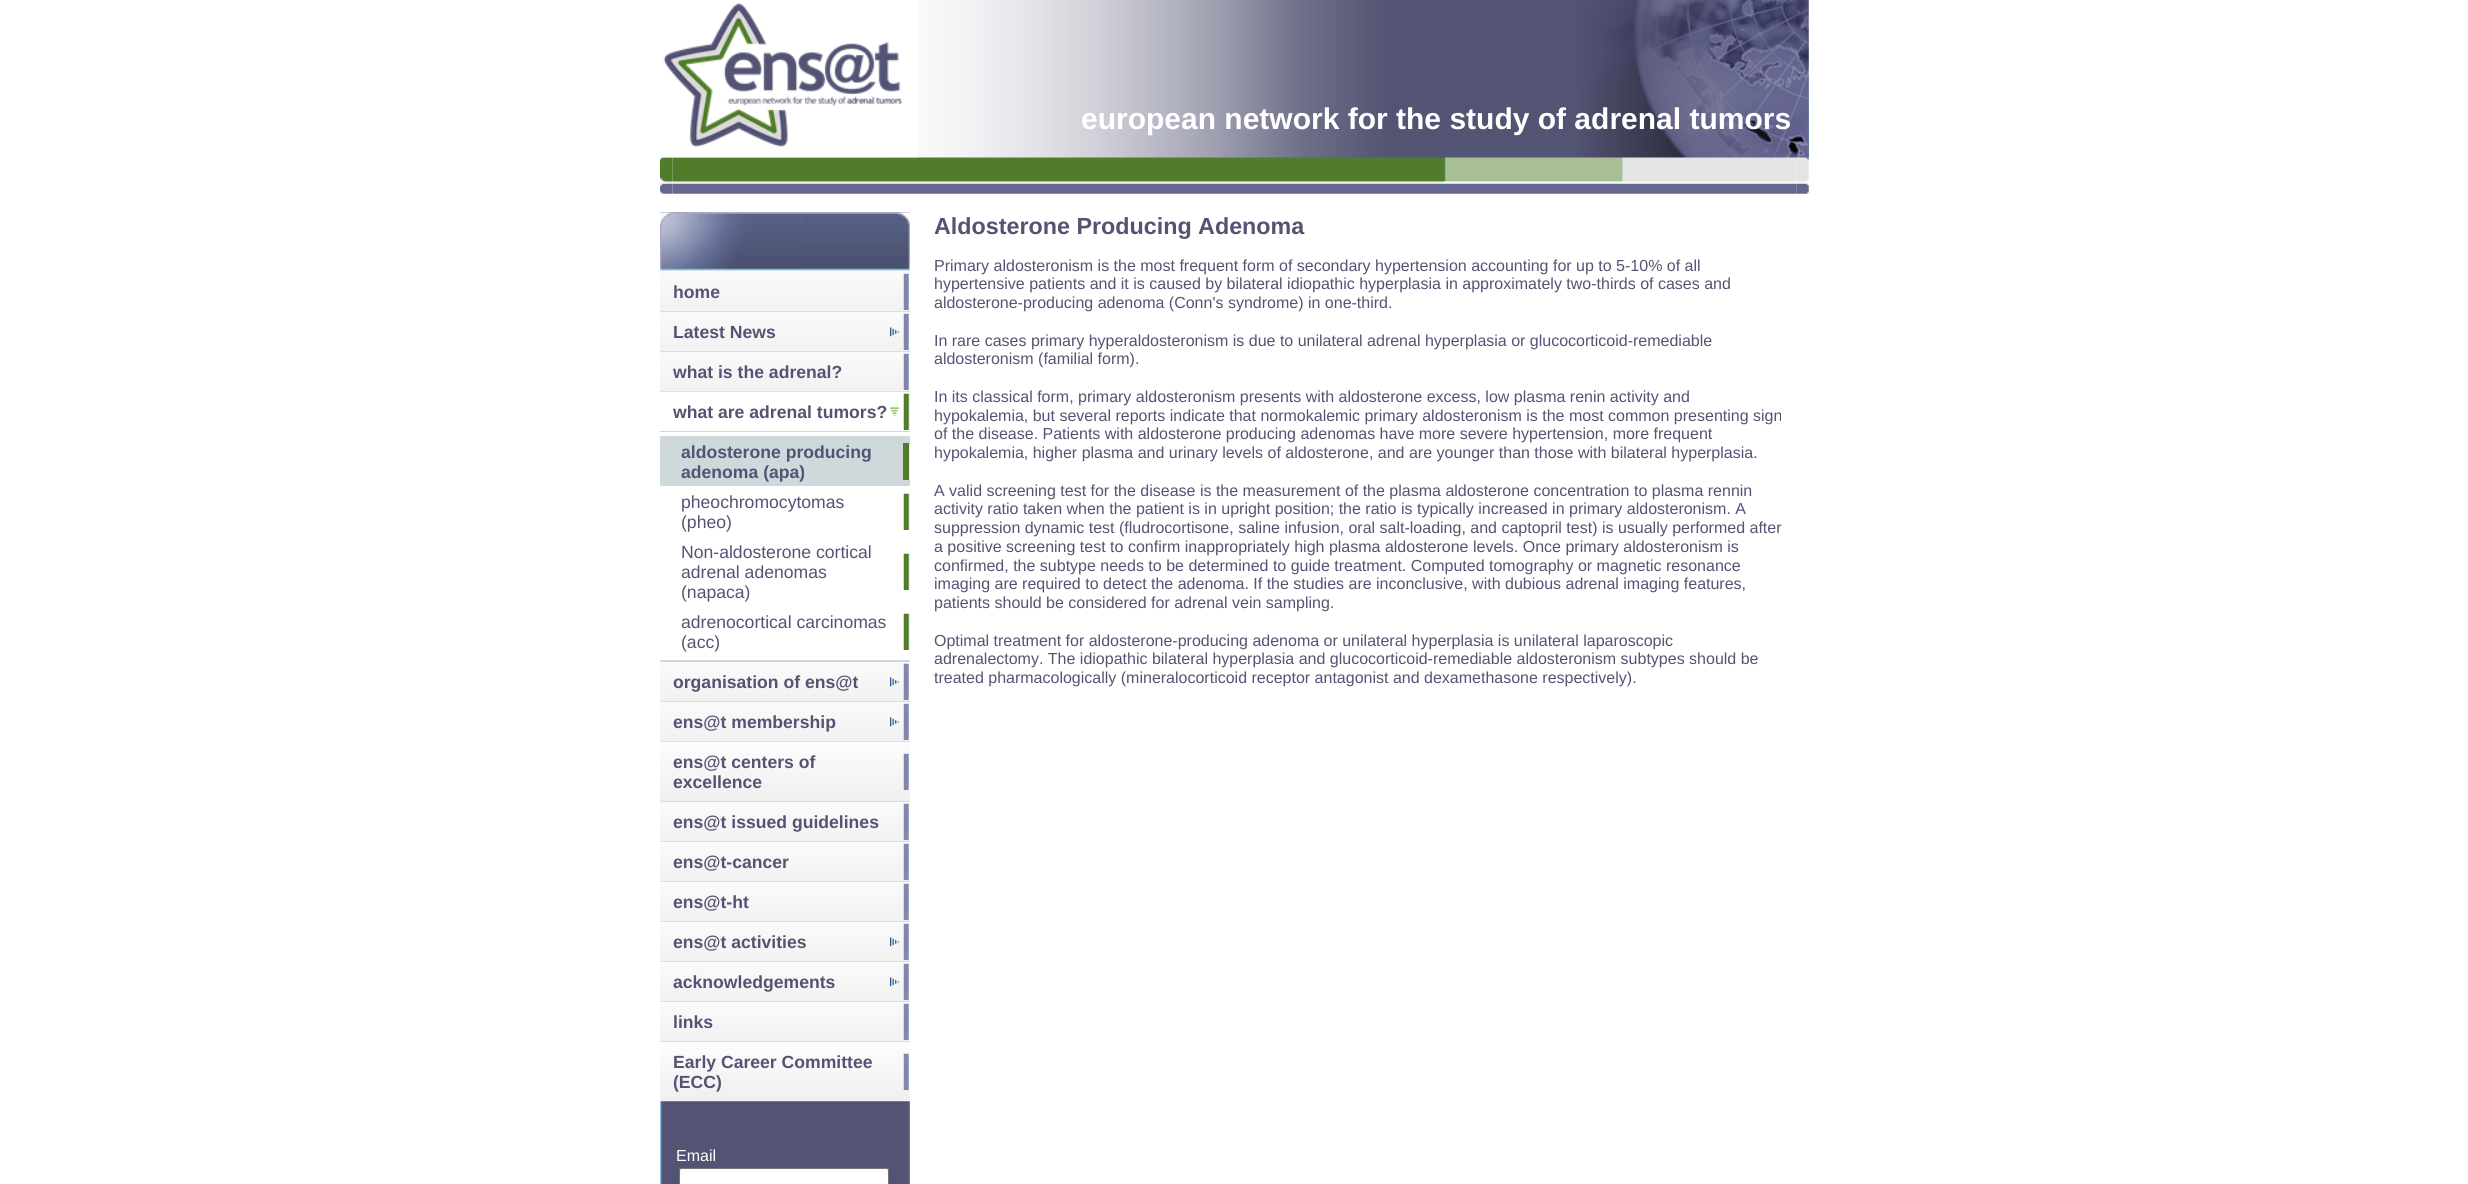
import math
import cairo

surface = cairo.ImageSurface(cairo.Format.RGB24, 2468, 1184)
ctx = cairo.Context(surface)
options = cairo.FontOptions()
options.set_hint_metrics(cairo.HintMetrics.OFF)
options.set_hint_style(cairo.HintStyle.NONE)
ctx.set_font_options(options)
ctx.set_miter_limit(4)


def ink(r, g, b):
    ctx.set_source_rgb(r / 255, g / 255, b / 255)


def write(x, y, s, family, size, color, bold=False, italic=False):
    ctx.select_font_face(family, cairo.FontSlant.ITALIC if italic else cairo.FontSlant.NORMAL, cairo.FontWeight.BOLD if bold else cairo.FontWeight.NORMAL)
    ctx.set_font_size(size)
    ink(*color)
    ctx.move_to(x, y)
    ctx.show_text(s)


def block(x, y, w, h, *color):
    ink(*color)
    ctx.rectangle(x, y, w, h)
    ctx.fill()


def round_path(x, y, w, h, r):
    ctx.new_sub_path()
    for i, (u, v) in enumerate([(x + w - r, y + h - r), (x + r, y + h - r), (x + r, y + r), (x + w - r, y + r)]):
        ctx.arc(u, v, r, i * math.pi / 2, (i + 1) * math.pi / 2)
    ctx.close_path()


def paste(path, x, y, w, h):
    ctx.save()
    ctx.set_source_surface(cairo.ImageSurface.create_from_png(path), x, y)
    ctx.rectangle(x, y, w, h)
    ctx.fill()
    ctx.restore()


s1 = dict(family="Liberation Sans", size=30, color=(255, 255, 255), bold=True)
s2 = dict(family="Liberation Sans", size=17.6, color=(83, 84, 115), bold=True)
s3 = dict(family="Liberation Sans", size=17.6, color=(83, 84, 115))
s4 = dict(family="Liberation Sans", size=16, color=(255, 255, 255))
s5 = dict(family="Liberation Sans", size=23.3, color=(83, 84, 115), bold=True)
s6 = dict(family="Liberation Sans", size=16, color=(83, 84, 115))

ink(255, 255, 255)
ctx.paint()
paste("pic4.png", 672, 157, 1125, 37)
paste("pic6.png", 1796, 156, 13, 38)
paste("pic1.png", 1808, 0, 1, 157)
paste("pic5.png", 660, 156, 13, 38)
paste("pic2.png", 661, 0, 1148, 158)
paste("pic3.png", 661, 0, 257, 158)
write(1081, 129, "european network for the study of adrenal tumors", **s1)
paste("pic7.png", 660, 212, 250, 710)
paste("pic8.png", 660, 961, 250, 223)
paste("pic9.png", 660, 212, 250, 58)
paste("pic10.png", 660, 212, 144, 58)
paste("pic11.png", 897, 212, 13, 58)
paste("pic12.png", 660, 271, 250, 41)
block(660, 270, 250, 1, 199, 230, 239)
paste("pic13.png", 903, 273, 7, 37)
write(673, 298, "home", **s2)
paste("pic14.png", 660, 311, 250, 41)
paste("pic13.png", 903, 313, 7, 37)
paste("pic15.png", 890, 327, 9, 10)
write(673, 338, "Latest News", **s2)
paste("pic14.png", 660, 351, 250, 41)
paste("pic13.png", 903, 353, 7, 37)
write(673, 378, "what is the adrenal?", **s2)
paste("pic16.png", 660, 391, 250, 40)
paste("pic17.png", 903, 393, 7, 37)
paste("pic18.png", 890, 407, 9, 10)
write(673, 418, "what are adrenal tumors?", **s2)
block(660, 432, 250, 228, 255, 255, 255)
block(660, 431, 250, 1, 207, 216, 218)
block(660, 660, 250, 1, 207, 216, 218)
block(660, 436, 250, 50, 207, 216, 218)
paste("pic19.png", 909, 443, 1, 1)
paste("pic20.png", 909, 443, 1, 37)
block(903, 443, 6, 37, 81, 125, 43)
write(681, 458, "aldosterone producing", **s2)
write(681, 478, "adenoma (apa)", **s2)
paste("pic17.png", 903, 493, 7, 37)
write(681, 508, "pheochromocytomas", **s3)
write(681, 528, "(pheo)", **s3)
paste("pic17.png", 903, 553, 7, 37)
write(681, 558, "Non-aldosterone cortical", **s3)
write(681, 578, "adrenal adenomas", **s3)
write(681, 598, "(napaca)", **s3)
paste("pic17.png", 903, 613, 7, 37)
write(681, 628, "adrenocortical carcinomas", **s3)
write(681, 648, "(acc)", **s3)
paste("pic14.png", 660, 661, 250, 41)
paste("pic13.png", 903, 663, 7, 37)
paste("pic15.png", 890, 677, 9, 10)
write(673, 688, "organisation of ens@t", **s2)
paste("pic14.png", 660, 701, 250, 41)
paste("pic13.png", 903, 703, 7, 37)
paste("pic15.png", 890, 717, 9, 10)
write(673, 728, "ens@t membership", **s2)
paste("pic21.png", 660, 741, 250, 61)
paste("pic13.png", 903, 753, 7, 37)
write(673, 768, "ens@t centers of", **s2)
write(673, 788, "excellence", **s2)
paste("pic14.png", 660, 801, 250, 41)
paste("pic13.png", 903, 803, 7, 37)
write(673, 828, "ens@t issued guidelines", **s2)
paste("pic14.png", 660, 841, 250, 41)
paste("pic13.png", 903, 843, 7, 37)
write(673, 868, "ens@t-cancer", **s2)
paste("pic14.png", 660, 881, 250, 41)
paste("pic13.png", 903, 883, 7, 37)
write(673, 908, "ens@t-ht", **s2)
paste("pic22.png", 660, 921, 250, 41)
paste("pic13.png", 903, 923, 7, 37)
paste("pic15.png", 890, 937, 9, 10)
write(673, 948, "ens@t activities", **s2)
paste("pic23.png", 660, 961, 250, 41)
paste("pic13.png", 903, 963, 7, 37)
paste("pic15.png", 890, 977, 9, 10)
write(673, 988, "acknowledgements", **s2)
paste("pic23.png", 660, 1001, 250, 41)
paste("pic13.png", 903, 1003, 7, 37)
write(673, 1028, "links", **s2)
paste("pic24.png", 660, 1041, 250, 61)
paste("pic13.png", 903, 1053, 7, 37)
write(673, 1068, "Early Career Committee", **s2)
write(673, 1088, "(ECC)", **s2)
write(676, 1161, "Email", **s4)
round_path(679.5, 1168.5, 209, 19, 2)
ctx.fill_preserve()
ink(118, 118, 118)
ctx.set_line_width(1)
ctx.stroke()
write(934, 234, "Aldosterone Producing Adenoma", **s5)
write(934, 271, "Primary aldosteronism is the most frequent form of secondary hypertension accounting for up to 5-10% of all", **s6)
write(934, 289, "hypertensive patients and it is caused by bilateral idiopathic hyperplasia in approximately two-thirds of cases and", **s6)
write(934, 308, "aldosterone-producing adenoma (Conn's syndrome) in one-third.", **s6)
write(934, 346, "In rare cases primary hyperaldosteronism is due to unilateral adrenal hyperplasia or glucocorticoid-remediable", **s6)
write(934, 364, "aldosteronism (familial form).", **s6)
write(934, 402, "In its classical form, primary aldosteronism presents with aldosterone excess, low plasma renin activity and", **s6)
write(934, 421, "hypokalemia, but several reports indicate that normokalemic primary aldosteronism is the most common presenting sign", **s6)
write(934, 439, "of the disease. Patients with aldosterone producing adenomas have more severe hypertension, more frequent", **s6)
write(934, 458, "hypokalemia, higher plasma and urinary levels of aldosterone, and are younger than those with bilateral hyperplasia.", **s6)
write(934, 496, "A valid screening test for the disease is the measurement of the plasma aldosterone concentration to plasma rennin", **s6)
write(934, 514, "activity ratio taken when the patient is in upright position; the ratio is typically increased in primary aldosteronism. A", **s6)
write(934, 533, "suppression dynamic test (fludrocortisone, saline infusion, oral salt-loading, and captopril test) is usually performed after", **s6)
write(934, 552, "a positive screening test to confirm inappropriately high plasma aldosterone levels. Once primary aldosteronism is", **s6)
write(934, 571, "confirmed, the subtype needs to be determined to guide treatment. Computed tomography or magnetic resonance", **s6)
write(934, 589, "imaging are required to detect the adenoma. If the studies are inconclusive, with dubious adrenal imaging features,", **s6)
write(934, 608, "patients should be considered for adrenal vein sampling.", **s6)
write(934, 646, "Optimal treatment for aldosterone-producing adenoma or unilateral hyperplasia is unilateral laparoscopic", **s6)
write(934, 664, "adrenalectomy. The idiopathic bilateral hyperplasia and glucocorticoid-remediable aldosteronism subtypes should be", **s6)
write(934, 683, "treated pharmacologically (mineralocorticoid receptor antagonist and dexamethasone respectively).", **s6)
surface.write_to_png("screenshot.png")
